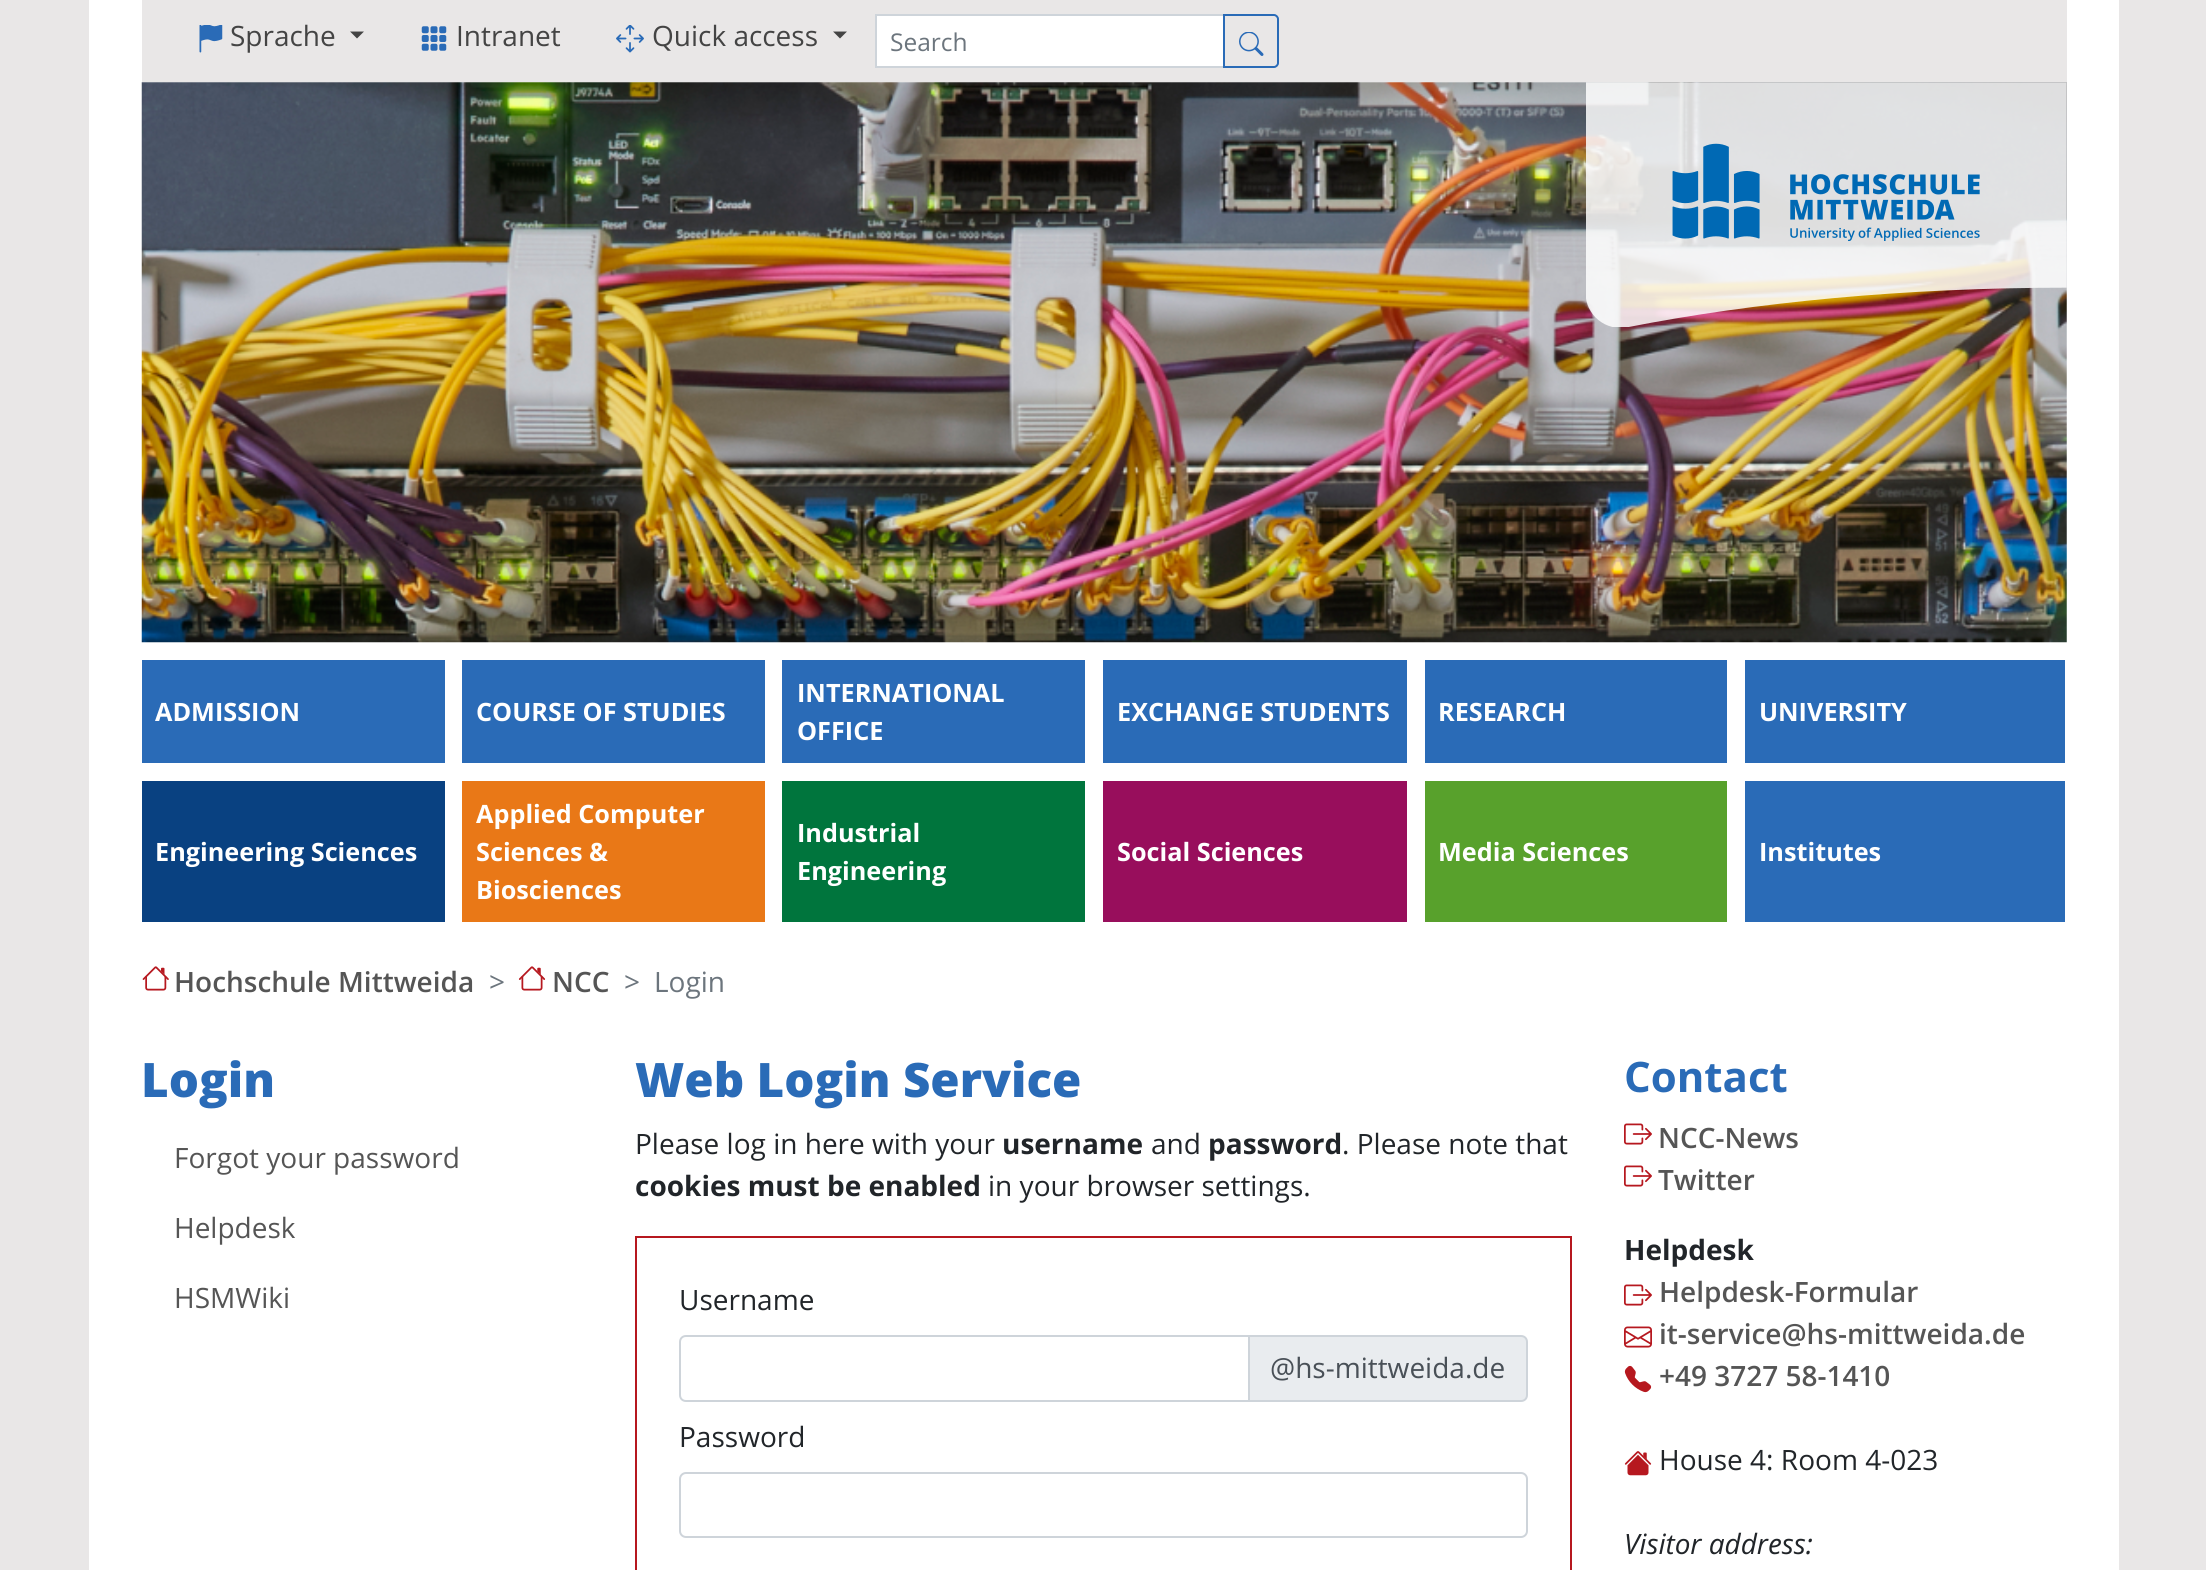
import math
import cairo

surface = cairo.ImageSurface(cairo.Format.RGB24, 2206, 1570)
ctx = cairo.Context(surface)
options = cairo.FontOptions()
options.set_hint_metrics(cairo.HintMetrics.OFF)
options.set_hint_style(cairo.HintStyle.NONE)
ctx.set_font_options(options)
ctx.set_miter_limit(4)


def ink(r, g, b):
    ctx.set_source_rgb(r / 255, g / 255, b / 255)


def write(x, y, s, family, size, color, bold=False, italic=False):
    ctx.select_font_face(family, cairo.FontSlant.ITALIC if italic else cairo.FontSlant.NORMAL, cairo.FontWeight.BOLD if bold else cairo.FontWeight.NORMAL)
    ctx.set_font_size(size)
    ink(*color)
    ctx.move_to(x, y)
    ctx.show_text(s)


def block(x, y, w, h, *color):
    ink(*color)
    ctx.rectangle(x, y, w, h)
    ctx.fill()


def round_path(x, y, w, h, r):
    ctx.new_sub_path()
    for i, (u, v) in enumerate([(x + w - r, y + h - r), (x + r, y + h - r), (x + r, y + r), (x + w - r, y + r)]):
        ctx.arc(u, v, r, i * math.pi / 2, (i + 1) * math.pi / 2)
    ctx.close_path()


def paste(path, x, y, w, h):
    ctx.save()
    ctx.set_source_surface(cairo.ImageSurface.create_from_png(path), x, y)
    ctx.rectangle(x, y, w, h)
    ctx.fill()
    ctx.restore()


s1 = dict(family="Open Sans", size=28, color=(68, 68, 68))
s2 = dict(family="Open Sans", size=24.5, color=(108, 117, 125))
s3 = dict(family="Open Sans", size=25.25, color=(255, 255, 255), bold=True)
s4 = dict(family="Open Sans SemiBold", size=28, color=(85, 85, 85))
s5 = dict(family="Open Sans", size=28, color=(108, 117, 125))
s6 = dict(family="Open Sans ExtraBold", size=47.5, color=(42, 107, 183))
s7 = dict(family="Open Sans", size=28, color=(85, 85, 85))
s8 = dict(family="Open Sans", size=28, color=(33, 37, 41))
s9 = dict(family="Open Sans", size=28, color=(33, 37, 41), bold=True)
s10 = dict(family="Open Sans", size=28, color=(73, 80, 87))
s11 = dict(family="Open Sans", size=42, color=(42, 107, 183), bold=True)
s12 = dict(family="Open Sans", size=28, color=(33, 37, 41), italic=True)

ink(233, 231, 231)
ctx.paint()
block(89, 0, 2030, 1570, 255, 255, 255)
block(142, 0, 1925, 82, 233, 231, 231)
paste("pic1.png", 199, 25, 24, 28)
write(230, 46, "Sprache", **s1)
ctx.new_path()
ctx.move_to(350, 31.5)
ctx.line_to(364, 31.5)
ctx.line_to(357, 38.5)
ctx.close_path()
ctx.fill()
paste("pic2.png", 421, 26, 26, 25)
write(456, 46, "Intranet", **s1)
paste("pic3.png", 616, 25, 28, 28)
write(652, 46, "Quick access", **s1)
ctx.new_path()
ctx.move_to(833, 31.5)
ctx.line_to(847, 31.5)
ctx.line_to(840, 38.5)
ctx.close_path()
ctx.fill()
ink(255, 255, 255)
ctx.rectangle(876, 15, 348, 52)
ctx.fill_preserve()
ink(206, 212, 218)
ctx.stroke()
write(890, 51, "Search", **s2)
ctx.new_path()
ctx.move_to(1224, 15)
ctx.line_to(1274, 15)
ctx.curve_to(1276, 15, 1278, 17, 1278, 19)
ctx.line_to(1278, 63)
ctx.curve_to(1278, 65, 1276, 67, 1274, 67)
ctx.line_to(1224, 67)
ctx.close_path()
ink(42, 107, 183)
ctx.stroke()
paste("pic4.png", 1239, 32, 25, 24)
paste("pic5.png", 141, 82, 1926, 561)
paste("pic6.png", 1586, 82, 481, 245)
block(142, 660, 303, 103, 42, 107, 183)
write(155, 721, "ADMISSION", **s3)
block(462, 660, 303, 103, 42, 107, 183)
write(476, 721, "COURSE OF STUDIES", **s3)
block(782, 660, 303, 103, 42, 107, 183)
write(797, 702, "INTERNATIONAL", **s3)
write(797, 740, "OFFICE", **s3)
block(1103, 660, 304, 103, 42, 107, 183)
write(1117, 721, "EXCHANGE STUDENTS", **s3)
block(1425, 660, 302, 103, 42, 107, 183)
write(1438, 721, "RESEARCH", **s3)
block(1745, 660, 320, 103, 42, 107, 183)
write(1759, 721, "UNIVERSITY", **s3)
block(142, 781, 303, 141, 9, 65, 129)
write(155, 861, "Engineering Sciences", **s3)
block(462, 781, 303, 141, 233, 120, 23)
write(476, 823, "Applied Computer", **s3)
write(476, 861, "Sciences &", **s3)
write(476, 899, "Biosciences", **s3)
block(782, 781, 303, 141, 0, 117, 61)
write(797, 842, "Industrial", **s3)
write(797, 880, "Engineering", **s3)
block(1103, 781, 304, 141, 152, 14, 92)
write(1117, 861, "Social Sciences", **s3)
block(1425, 781, 302, 141, 88, 161, 44)
write(1438, 861, "Media Sciences", **s3)
block(1745, 781, 320, 141, 42, 107, 183)
write(1759, 861, "Institutes", **s3)
paste("pic7.png", 142, 966, 27, 25)
write(174, 992, "Hochschule Mittweida", **s4)
write(489, 992, ">", **s5)
paste("pic8.png", 518, 966, 28, 25)
write(552, 992, "NCC", **s4)
write(624, 992, ">", **s5)
write(654, 992, "Login", **s5)
write(141, 1097, "Login", **s6)
write(174, 1168, "Forgot your password", **s7)
write(174, 1238, "Helpdesk", **s7)
write(174, 1308, "HSMWiki", **s7)
write(635, 1097, "Web Login Service", **s6)
write(635, 1154, "Please log in here with your", **s8)
write(1002, 1154, "username", **s9)
write(1151, 1154, "and", **s8)
write(1208, 1154, "password", **s9)
write(1342, 1154, ". Please note that", **s8)
write(635, 1196, "cookies must be enabled", **s9)
write(988, 1196, "in your browser settings.", **s8)
ctx.rectangle(636, 1237, 935, 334)
ink(182, 24, 31)
ctx.stroke()
write(679, 1310, "Username", **s8)
ink(233, 236, 239)
ctx.new_path()
ctx.move_to(1249, 1336)
ctx.line_to(1521, 1336)
ctx.curve_to(1524.5, 1336, 1527, 1338.5, 1527, 1342)
ctx.line_to(1527, 1395)
ctx.curve_to(1527, 1398.5, 1524.5, 1401, 1521, 1401)
ctx.line_to(1249, 1401)
ctx.close_path()
ctx.fill_preserve()
ink(206, 212, 218)
ctx.stroke()
ctx.new_path()
ctx.move_to(686, 1336)
ctx.line_to(1249, 1336)
ctx.line_to(1249, 1401)
ctx.line_to(686, 1401)
ctx.curve_to(682.5, 1401, 680, 1398.5, 680, 1395)
ctx.line_to(680, 1342)
ctx.curve_to(680, 1338.5, 682.5, 1336, 686, 1336)
ctx.close_path()
ctx.stroke()
write(1270, 1378, "@hs-mittweida.de", **s10)
write(679, 1447, "Password", **s8)
round_path(680, 1473, 847, 64, 6)
ink(206, 212, 218)
ctx.stroke()
write(1624, 1092, "Contact", **s11)
paste("pic9.png", 1624, 1123, 28, 22)
write(1658, 1148, "NCC-News", **s4)
paste("pic9.png", 1624, 1165, 28, 22)
write(1658, 1190, "Twitter", **s4)
write(1624, 1260, "Helpdesk", **s9)
paste("pic9.png", 1624, 1284, 28, 22)
write(1659, 1302, "Helpdesk-Formular", **s4)
paste("pic10.png", 1624, 1326, 28, 22)
write(1659, 1344, "it-service@hs-mittweida.de", **s4)
paste("pic11.png", 1624, 1365, 28, 28)
write(1659, 1386, "+49 3727 58-1410", **s4)
paste("pic12.png", 1624, 1451, 28, 25)
write(1659, 1470, "House 4: Room 4-023", **s8)
write(1624, 1554, "Visitor address:", **s12)
surface.write_to_png("screenshot.png")
